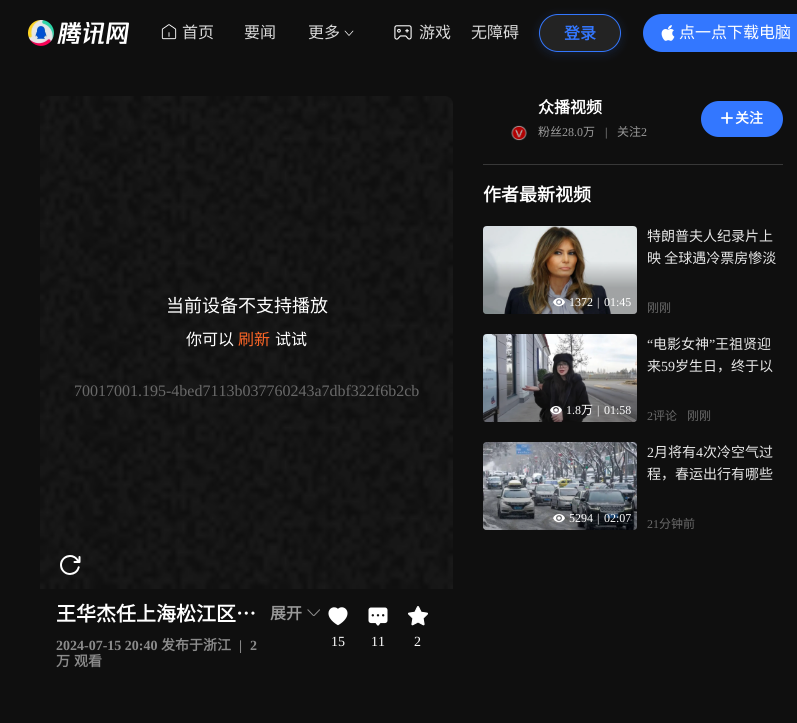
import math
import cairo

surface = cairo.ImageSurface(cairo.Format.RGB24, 797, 723)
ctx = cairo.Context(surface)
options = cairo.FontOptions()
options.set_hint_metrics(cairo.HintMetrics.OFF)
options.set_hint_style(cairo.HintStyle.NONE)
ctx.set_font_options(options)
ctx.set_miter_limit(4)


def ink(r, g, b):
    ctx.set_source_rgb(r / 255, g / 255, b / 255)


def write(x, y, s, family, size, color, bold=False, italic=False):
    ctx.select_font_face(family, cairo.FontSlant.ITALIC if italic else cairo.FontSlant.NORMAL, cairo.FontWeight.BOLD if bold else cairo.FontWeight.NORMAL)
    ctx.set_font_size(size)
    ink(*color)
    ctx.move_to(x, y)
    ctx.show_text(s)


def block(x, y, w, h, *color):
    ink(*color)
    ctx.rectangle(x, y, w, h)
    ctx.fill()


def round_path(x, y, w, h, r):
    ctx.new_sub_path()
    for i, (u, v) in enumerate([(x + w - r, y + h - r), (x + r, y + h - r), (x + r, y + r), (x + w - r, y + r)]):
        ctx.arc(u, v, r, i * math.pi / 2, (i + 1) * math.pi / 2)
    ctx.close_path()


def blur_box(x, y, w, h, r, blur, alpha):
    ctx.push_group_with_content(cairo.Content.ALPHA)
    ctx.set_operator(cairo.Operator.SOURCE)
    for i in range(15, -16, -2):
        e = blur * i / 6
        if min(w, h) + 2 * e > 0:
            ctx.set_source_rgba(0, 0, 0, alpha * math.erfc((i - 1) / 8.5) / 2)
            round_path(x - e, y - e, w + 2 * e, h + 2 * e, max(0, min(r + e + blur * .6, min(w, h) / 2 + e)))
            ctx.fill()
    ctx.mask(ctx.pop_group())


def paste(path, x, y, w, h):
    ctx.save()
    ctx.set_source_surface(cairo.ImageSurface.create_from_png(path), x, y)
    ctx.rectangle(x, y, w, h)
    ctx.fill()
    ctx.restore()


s1 = dict(family="Noto Sans CJK SC", size=16, color=(217, 217, 217))
s2 = dict(family="Noto Sans CJK SC", size=16, color=(51, 119, 255), bold=True)
s3 = dict(family="Noto Sans CJK SC", size=16, color=(255, 255, 255))
s4 = dict(family="Noto Sans CJK SC", size=18, color=(255, 255, 255))
s5 = dict(family="Noto Sans CJK SC", size=16, color=(252, 101, 38))
s6 = dict(family="Liberation Serif", size=16, color=(105, 105, 105))
s7 = dict(family="Noto Sans CJK SC", size=20, color=(255, 255, 255), bold=True)
s8 = dict(family="Noto Sans CJK SC", size=16, color=(153, 153, 153), bold=True)
s9 = dict(family="Liberation Serif", size=14, color=(139, 139, 139), bold=True)
s10 = dict(family="Noto Sans CJK SC", size=14, color=(139, 139, 139), bold=True)
s11 = dict(family="Liberation Serif", size=14, color=(255, 255, 255))
s12 = dict(family="Noto Sans CJK SC", size=16, color=(255, 255, 255), bold=True)
s13 = dict(family="Noto Sans CJK SC", size=12, color=(153, 153, 153))
s14 = dict(family="Liberation Serif", size=12, color=(153, 153, 153))
s15 = dict(family="Noto Sans CJK SC", size=14, color=(255, 255, 255), bold=True)
s16 = dict(family="Noto Sans CJK SC", size=18, color=(255, 255, 255), bold=True)
s17 = dict(family="Liberation Serif", size=12, color=(255, 255, 255))
s18 = dict(family="Noto Sans CJK SC", size=14, color=(230, 230, 230))
s19 = dict(family="Noto Sans CJK SC", size=12, color=(105, 105, 105))
s20 = dict(family="Noto Sans CJK SC", size=12, color=(255, 255, 255))
s21 = dict(family="Liberation Serif", size=14, color=(230, 230, 230))
s22 = dict(family="Liberation Serif", size=12, color=(105, 105, 105))

ink(15, 15, 15)
ctx.paint()
paste("pic1.png", 28, 20, 101, 26)
paste("pic2.png", 161, 24, 16, 16)
write(182, 38, "首页", **s1)
write(244, 38, "要闻", **s1)
write(308, 38, "更多", **s1)
ctx.new_path()
ctx.move_to(353, 31)
ctx.line_to(349, 35.5)
ctx.line_to(345, 31)
ink(255, 255, 255)
ctx.set_line_width(0.7)
ctx.set_line_cap(cairo.LineCap.ROUND)
ctx.set_line_join(cairo.LineJoin.ROUND)
ctx.stroke()
paste("pic3.png", 394, 25, 18, 15)
write(419, 38, "游戏", **s1)
write(471, 38, "无障碍", **s1)
ctx.save()
ctx.set_fill_rule(cairo.FillRule.EVEN_ODD)
ctx.new_path()
ctx.move_to(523, 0)
ctx.line_to(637, 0)
ctx.line_to(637, 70)
ctx.line_to(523, 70)
ctx.close_path()
ctx.move_to(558, 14)
ctx.line_to(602, 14)
ctx.curve_to(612.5, 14, 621, 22.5, 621, 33)
ctx.curve_to(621, 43.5, 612.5, 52, 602, 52)
ctx.line_to(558, 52)
ctx.curve_to(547.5, 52, 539, 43.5, 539, 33)
ctx.curve_to(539, 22.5, 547.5, 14, 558, 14)
ctx.close_path()
ctx.clip()
ink(51, 119, 255)
blur_box(539, 16, 82, 38, 19, 5, 0.16)
ctx.restore()
ctx.set_source_rgba(0.851, 0.851, 0.851, 0.1)
round_path(539.5, 14.5, 81, 37, 18.5)
ctx.fill_preserve()
ink(51, 119, 255)
ctx.set_line_width(1)
ctx.set_line_cap(cairo.LineCap.BUTT)
ctx.set_line_join(cairo.LineJoin.MITER)
ctx.stroke()
write(564, 39, "登录", **s2)
round_path(643, 14, 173, 38, 19)
ctx.fill()
paste("pic4.png", 661, 25, 14, 16)
write(679, 38, "点一点下载电脑", **s3)
paste("pic5.png", 40, 96, 413, 493)
write(166, 312, "当前设备不支持播放", **s4)
write(186, 345, "你可以", **s3)
write(238, 345, "刷新", **s5)
write(275, 345, "试试", **s3)
write(74, 396, "70017001.195-4bed7113b037760243a7dbf322f6b2cb", **s6)
write(56, 621, "王华杰任上海松江区…", **s7)
write(270, 619, "展开", **s8)
paste("pic6.png", 307, 609, 13, 7)
write(56, 650, "2024-07-15 20:40", **s9)
write(161, 650, "发布于浙江", **s10)
write(239, 650, "|", **s9)
write(250, 650, "2", **s9)
write(56, 666, "万", **s10)
write(74, 666, "观看", **s10)
paste("pic7.png", 328, 607, 20, 19)
write(331, 646, "15", **s11)
paste("pic8.png", 368, 607, 20, 19)
write(371, 646, "11", **s11)
paste("pic9.png", 408, 606, 20, 20)
write(414, 646, "2", **s11)
write(538, 113, "众播视频", **s12)
write(538, 136, "粉丝", **s13)
write(562, 136, "28.0", **s14)
write(583, 136, "万", **s13)
write(605, 136, "|", **s14)
write(617, 136, "关注", **s13)
write(641, 136, "2", **s14)
ink(51, 119, 255)
round_path(701, 101, 82, 36, 18)
ctx.fill()
paste("pic10.png", 721, 112, 12, 12)
write(735, 123, "关注", **s15)
paste("pic11.png", 511, 125, 16, 16)
block(483, 164, 300, 1, 56, 56, 56)
write(483, 201, "作者最新视频", **s16)
paste("pic12.png", 483, 226, 154, 88)
gradient = cairo.LinearGradient(560, 314, 560, 226)
gradient.add_color_stop_rgba(0.3, 0, 0, 0, 0.3)
gradient.add_color_stop_rgba(0.6, 0, 0, 0, 0)
ctx.set_source(gradient)
round_path(483, 226, 154, 88, 4)
ctx.fill()
paste("pic13.png", 553, 298, 12, 9)
write(569, 306, "1372", **s17)
write(597, 306, "|", **s17)
write(604, 306, "01:45", **s17)
write(647, 241, "特朗普夫人纪录片上", **s18)
write(647, 263, "映 全球遇冷票房惨淡", **s18)
write(647, 312, "刚刚", **s19)
paste("pic14.png", 483, 334, 154, 88)
gradient = cairo.LinearGradient(560, 422, 560, 334)
gradient.add_color_stop_rgba(0.3, 0, 0, 0, 0.3)
gradient.add_color_stop_rgba(0.6, 0, 0, 0, 0)
ctx.set_source(gradient)
round_path(483, 334, 154, 88, 4)
ctx.fill()
paste("pic15.png", 550, 406, 12, 9)
write(566, 414, "1.8", **s17)
write(581, 414, "万", **s20)
write(597, 414, "|", **s17)
write(604, 414, "01:58", **s17)
write(647, 349, "“", **s21)
write(653, 349, "电影女神", **s18)
write(709, 349, "”", **s21)
write(715, 349, "王祖贤迎", **s18)
write(647, 371, "来", **s18)
write(661, 371, "59", **s21)
write(675, 371, "岁生日，终于以", **s18)
write(647, 420, "2", **s22)
write(653, 420, "评论", **s19)
write(687, 420, "刚刚", **s19)
paste("pic16.png", 483, 442, 154, 88)
gradient = cairo.LinearGradient(560, 530, 560, 442)
gradient.add_color_stop_rgba(0.3, 0, 0, 0, 0.3)
gradient.add_color_stop_rgba(0.6, 0, 0, 0, 0)
ctx.set_source(gradient)
round_path(483, 442, 154, 88, 4)
ctx.fill()
paste("pic17.png", 553, 514, 12, 9)
write(569, 522, "5294", **s17)
write(597, 522, "|", **s17)
write(604, 522, "02:07", **s17)
write(647, 457, "2", **s21)
write(654, 457, "月将有", **s18)
write(696, 457, "4", **s21)
write(703, 457, "次冷空气过", **s18)
write(647, 479, "程，春运出行有哪些", **s18)
write(647, 528, "21", **s22)
write(659, 528, "分钟前", **s19)
surface.write_to_png("screenshot.png")
